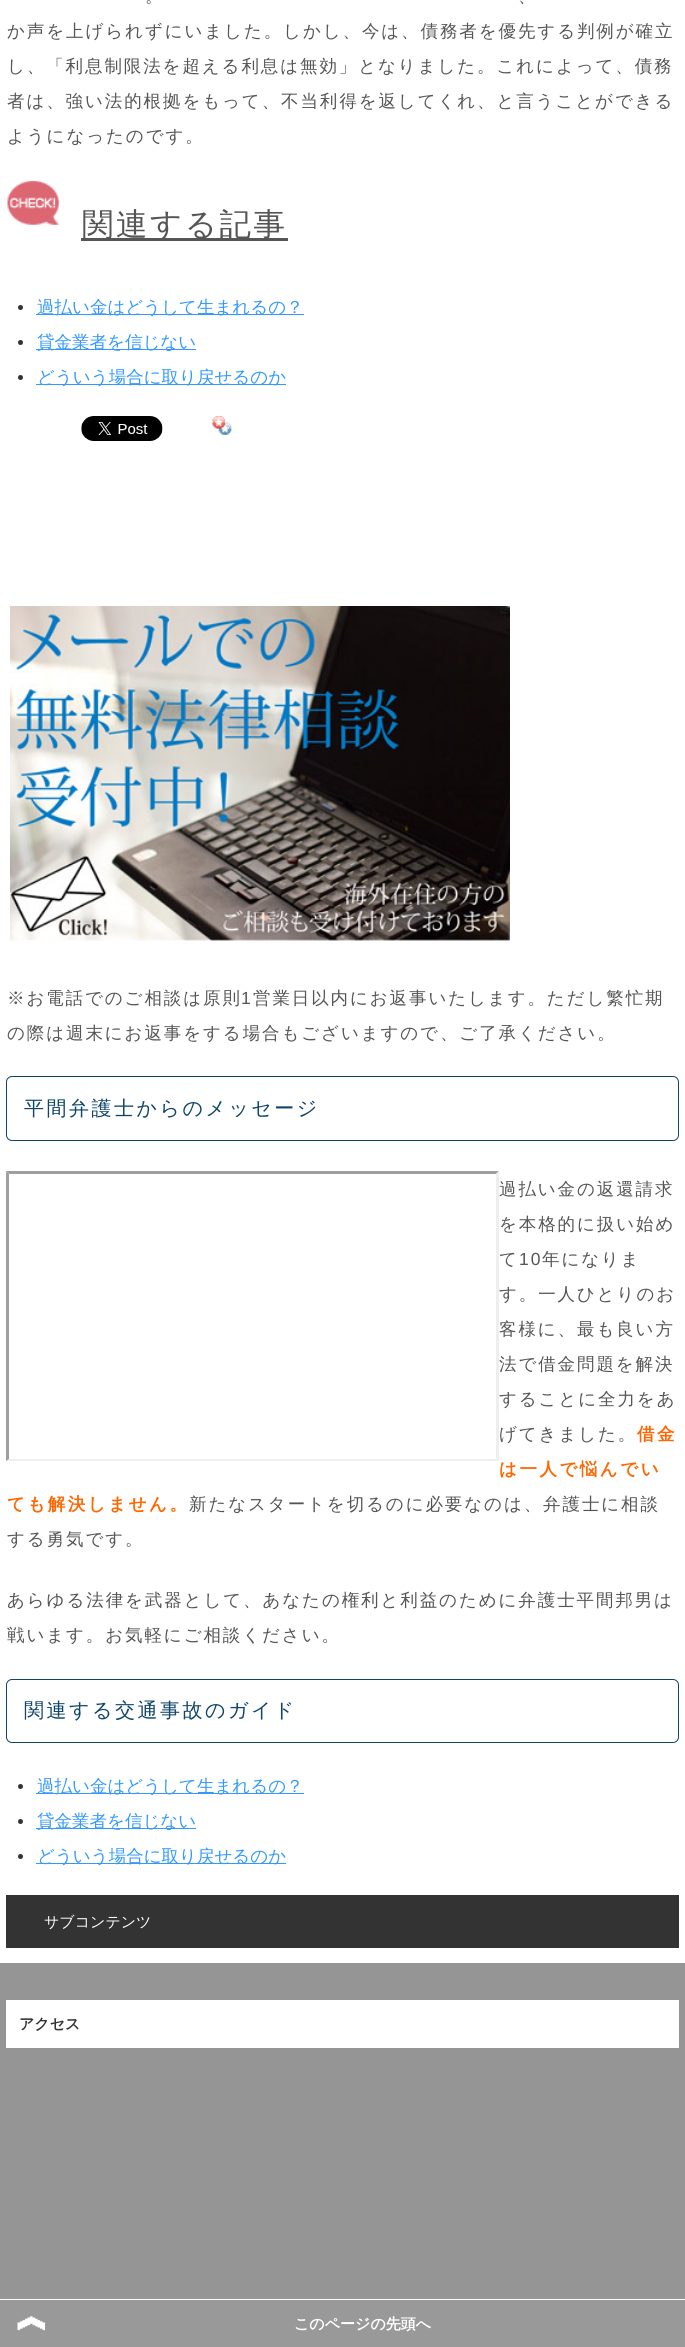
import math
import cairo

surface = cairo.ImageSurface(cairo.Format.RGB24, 685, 2347)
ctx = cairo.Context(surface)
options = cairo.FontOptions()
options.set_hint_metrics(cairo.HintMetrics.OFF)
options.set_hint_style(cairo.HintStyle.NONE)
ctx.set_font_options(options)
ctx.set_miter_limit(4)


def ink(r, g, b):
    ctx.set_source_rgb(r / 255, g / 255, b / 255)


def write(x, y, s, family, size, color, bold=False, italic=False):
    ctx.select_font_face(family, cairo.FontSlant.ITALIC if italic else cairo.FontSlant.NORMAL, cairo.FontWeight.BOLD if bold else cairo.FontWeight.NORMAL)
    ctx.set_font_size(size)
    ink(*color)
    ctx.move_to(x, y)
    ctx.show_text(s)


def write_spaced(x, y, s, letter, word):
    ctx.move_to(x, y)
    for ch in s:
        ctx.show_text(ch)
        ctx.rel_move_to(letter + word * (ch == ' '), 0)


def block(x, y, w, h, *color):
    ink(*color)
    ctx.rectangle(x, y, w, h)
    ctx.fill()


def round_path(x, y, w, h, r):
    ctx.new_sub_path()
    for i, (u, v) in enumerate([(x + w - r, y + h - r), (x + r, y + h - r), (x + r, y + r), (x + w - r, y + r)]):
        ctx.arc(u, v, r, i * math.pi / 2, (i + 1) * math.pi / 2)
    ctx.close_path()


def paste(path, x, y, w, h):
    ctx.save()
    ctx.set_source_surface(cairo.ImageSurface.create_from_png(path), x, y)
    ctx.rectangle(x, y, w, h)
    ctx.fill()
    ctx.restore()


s1 = dict(family="WenQuanYi Zen Hei Medium", size=17.5, color=(51, 153, 255))
s2 = dict(family="WenQuanYi Zen Hei Medium", size=15, color=(255, 255, 255))
s3 = dict(family="WenQuanYi Zen Hei", size=15, color=(51, 51, 51), bold=True)
s4 = dict(family="WenQuanYi Zen Hei", size=15, color=(255, 255, 255), bold=True)

ink(255, 255, 255)
ctx.paint()
ctx.select_font_face("WenQuanYi Zen Hei Medium")
ctx.set_font_size(17.5)
ink(85, 85, 85)
write_spaced(145, 2, "。", 1.9, 0)
write_spaced(518, 2, "、", 1.9, 0)
write_spaced(7, 37, "か声を上げられずにいました。しかし、今は、債務者を優先する判例が確立", 1.9, 0)
write_spaced(7, 72, "し、「利息制限法を超える利息は無効」となりました。これによって、債務", 1.9, 0)
write_spaced(7, 107, "者は、強い法的根拠をもって、不当利得を返してくれ、と言うことができる", 1.9, 0)
write_spaced(7, 142, "ようになったのです。", 1.9, 0)
paste("pic1.png", 7, 180, 53, 45)
block(81, 238, 207, 3, 85, 85, 85)
ctx.set_font_size(31.5)
write_spaced(82, 235, "関連する記事", 2.5, 0)
ink(51, 51, 51)
ctx.new_path()
ctx.arc(20.5, 307.5, 2.5, 0, 2 * math.pi)
ctx.fill()
block(36, 314, 268, 1, 51, 153, 255)
write(37, 313, "過払い金はどうして生まれるの？", **s1)
ink(51, 51, 51)
ctx.new_path()
ctx.arc(20.5, 342.5, 2.5, 0, 2 * math.pi)
ctx.fill()
block(36, 349, 160, 1, 51, 153, 255)
write(37, 348, "貸金業者を信じない", **s1)
ink(51, 51, 51)
ctx.new_path()
ctx.arc(20.5, 377.5, 2.5, 0, 2 * math.pi)
ctx.fill()
block(36, 384, 250, 1, 51, 153, 255)
write(37, 383, "どういう場合に取り戻せるのか", **s1)
paste("pic2.png", 81, 416, 82, 25)
paste("pic3.png", 212, 416, 20, 19)
paste("pic4.png", 10, 606, 500, 335)
ink(85, 85, 85)
write_spaced(7, 1004, "※お電話でのご相談は原則", 1.9, 0)
ctx.select_font_face("Liberation Sans")
write_spaced(241, 1004, "1", 1.9, 0)
ctx.select_font_face("WenQuanYi Zen Hei Medium")
write_spaced(253, 1004, "営業日以内にお返事いたします。ただし繁忙期", 1.9, 0)
write_spaced(7, 1039, "の際は週末にお返事をする場合もございますので、ご了承ください。", 1.9, 0)
round_path(6.5, 1076.5, 672, 64, 5.5)
ink(14, 69, 104)
ctx.set_line_width(1)
ctx.stroke()
ctx.set_font_size(20)
write_spaced(24, 1115, "平間弁護士からのメッセージ", 2.5, 0)
ink(159, 159, 159)
ctx.new_path()
ctx.move_to(6, 1171)
ctx.line_to(499, 1171)
ctx.line_to(496, 1174)
ctx.line_to(9, 1174)
ctx.close_path()
ctx.fill()
ink(238, 238, 238)
ctx.new_path()
ctx.move_to(499, 1171)
ctx.line_to(499, 1461)
ctx.line_to(496, 1459)
ctx.line_to(496, 1174)
ctx.close_path()
ctx.fill()
ctx.new_path()
ctx.move_to(499, 1461)
ctx.line_to(6, 1461)
ctx.line_to(9, 1459)
ctx.line_to(496, 1459)
ctx.close_path()
ctx.fill()
ink(159, 159, 159)
ctx.new_path()
ctx.move_to(6, 1461)
ctx.line_to(6, 1171)
ctx.line_to(9, 1174)
ctx.line_to(9, 1459)
ctx.close_path()
ctx.fill()
ctx.set_font_size(17.5)
ink(85, 85, 85)
write_spaced(499, 1195, "過払い金の返還請求", 1.9, 0)
write_spaced(499, 1230, "を本格的に扱い始め", 1.9, 0)
write_spaced(499, 1265, "て", 1.9, 0)
ctx.select_font_face("Liberation Sans")
write_spaced(519, 1265, "10", 1.9, 0)
ctx.select_font_face("WenQuanYi Zen Hei Medium")
write_spaced(542, 1265, "年になりま", 1.9, 0)
write_spaced(499, 1300, "す。一人ひとりのお", 1.9, 0)
write_spaced(499, 1335, "客様に、最も良い方", 1.9, 0)
write_spaced(499, 1370, "法で借金問題を解決", 1.9, 0)
write_spaced(499, 1405, "することに全力をあ", 1.9, 0)
write_spaced(499, 1440, "げてきました。", 1.9, 0)
ctx.select_font_face("WenQuanYi Zen Hei", cairo.FontSlant.NORMAL, cairo.FontWeight.BOLD)
ink(255, 102, 0)
write_spaced(637, 1440, "借金", 2.5, 0)
write_spaced(499, 1475, "は一人で悩んでい", 2.5, 0)
write_spaced(7, 1510, "ても解決しません。", 2.5, 0)
ctx.select_font_face("WenQuanYi Zen Hei Medium")
ink(85, 85, 85)
write_spaced(189, 1510, "新たなスタートを切るのに必要なのは、弁護士に相談", 1.9, 0)
write_spaced(7, 1545, "する勇気です。", 1.9, 0)
write_spaced(7, 1606, "あらゆる法律を武器として、あなたの権利と利益のために弁護士平間邦男は", 1.9, 0)
write_spaced(7, 1641, "戦います。お気軽にご相談ください。", 1.9, 0)
round_path(6.5, 1679.5, 672, 63, 5.5)
ink(14, 69, 104)
ctx.stroke()
ctx.set_font_size(20)
write_spaced(24, 1717, "関連する交通事故のガイド", 2.5, 0)
ink(51, 51, 51)
ctx.new_path()
ctx.arc(20.5, 1786.5, 2.5, 0, 2 * math.pi)
ctx.fill()
block(36, 1793, 268, 1, 51, 153, 255)
write(37, 1792, "過払い金はどうして生まれるの？", **s1)
ink(51, 51, 51)
ctx.new_path()
ctx.arc(20.5, 1821.5, 2.5, 0, 2 * math.pi)
ctx.fill()
block(36, 1828, 160, 1, 51, 153, 255)
write(37, 1827, "貸金業者を信じない", **s1)
ink(51, 51, 51)
ctx.new_path()
ctx.arc(20.5, 1856.5, 2.5, 0, 2 * math.pi)
ctx.fill()
block(36, 1863, 250, 1, 51, 153, 255)
write(37, 1862, "どういう場合に取り戻せるのか", **s1)
block(6, 1895, 673, 53, 51, 51, 51)
write(44, 1927, "サブコンテンツ", **s2)
block(0, 1963, 685, 336, 149, 149, 149)
block(6, 2000, 673, 48, 255, 255, 255)
write(19, 2029, "アクセス", **s3)
block(0, 2300, 685, 47, 153, 153, 153)
paste("pic5.png", 17, 2316, 28, 15)
write(294, 2329, "このページの先頭へ", **s4)
surface.write_to_png("screenshot.png")
